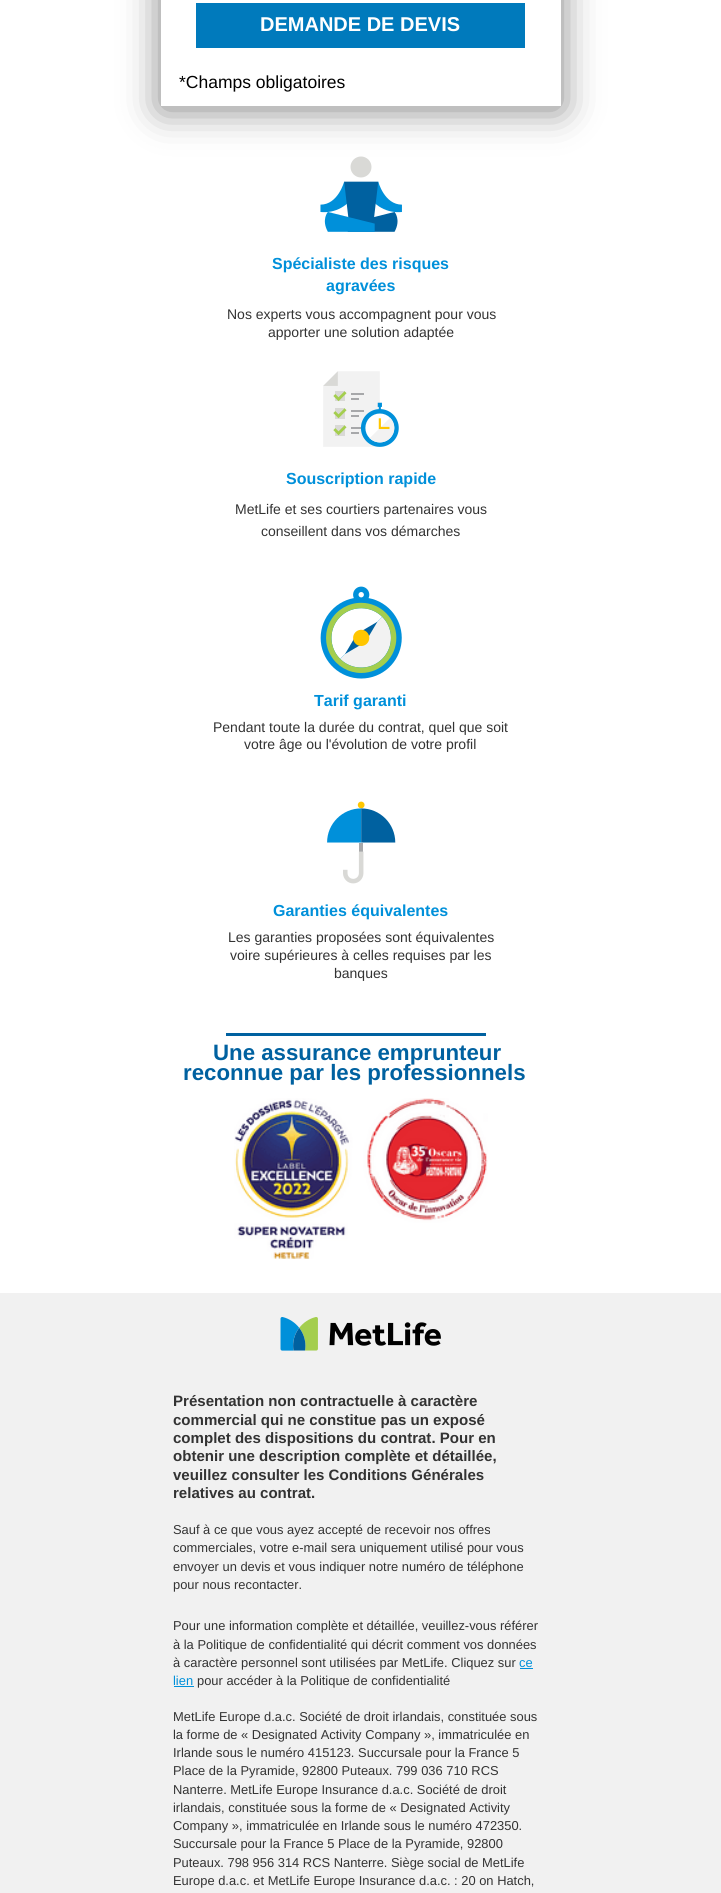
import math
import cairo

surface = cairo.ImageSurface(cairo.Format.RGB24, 721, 1893)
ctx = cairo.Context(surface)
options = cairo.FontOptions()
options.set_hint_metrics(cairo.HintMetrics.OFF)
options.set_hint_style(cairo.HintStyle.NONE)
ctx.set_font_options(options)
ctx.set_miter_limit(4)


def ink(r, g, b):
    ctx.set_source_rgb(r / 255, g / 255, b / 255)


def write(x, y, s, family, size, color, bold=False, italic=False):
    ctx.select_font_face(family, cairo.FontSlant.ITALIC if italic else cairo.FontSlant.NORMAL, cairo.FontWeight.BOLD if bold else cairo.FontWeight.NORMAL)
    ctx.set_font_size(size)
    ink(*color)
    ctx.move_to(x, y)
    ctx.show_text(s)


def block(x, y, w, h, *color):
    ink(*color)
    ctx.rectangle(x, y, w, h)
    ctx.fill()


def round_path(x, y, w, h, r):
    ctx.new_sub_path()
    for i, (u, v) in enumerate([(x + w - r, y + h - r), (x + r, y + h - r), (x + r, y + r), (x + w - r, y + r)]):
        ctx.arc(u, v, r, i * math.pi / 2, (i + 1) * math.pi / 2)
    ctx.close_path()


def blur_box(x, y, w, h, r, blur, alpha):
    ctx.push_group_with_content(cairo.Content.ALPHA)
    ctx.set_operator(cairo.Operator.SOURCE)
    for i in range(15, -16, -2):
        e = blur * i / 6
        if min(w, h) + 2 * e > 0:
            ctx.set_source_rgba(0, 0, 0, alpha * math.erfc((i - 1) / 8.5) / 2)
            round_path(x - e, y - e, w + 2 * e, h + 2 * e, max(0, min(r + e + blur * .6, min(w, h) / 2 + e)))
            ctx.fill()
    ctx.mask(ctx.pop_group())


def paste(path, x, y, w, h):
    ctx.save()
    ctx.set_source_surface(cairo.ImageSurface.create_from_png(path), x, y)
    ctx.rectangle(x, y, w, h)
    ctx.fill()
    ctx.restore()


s1 = dict(family="Liberation Sans", size=20, color=(255, 255, 255), bold=True)
s2 = dict(family="Liberation Sans", size=17.5, color=(0, 0, 0))
s3 = dict(family="Liberation Sans", size=16, color=(0, 144, 218), bold=True)
s4 = dict(family="Liberation Sans", size=14, color=(51, 51, 51))
s5 = dict(family="Liberation Sans", size=22.25, color=(0, 97, 160), bold=True)
s6 = dict(family="Liberation Sans", size=15.05, color=(51, 51, 51), bold=True)
s7 = dict(family="Liberation Sans", size=12.9, color=(51, 51, 51))
s8 = dict(family="Liberation Sans", size=12.9, color=(0, 144, 218))

ink(241, 241, 241)
ctx.paint()
block(0, 0, 721, 1293, 255, 255, 255)
paste("pic1.png", 320, 156, 82, 76)
ink(0, 0, 0)
blur_box(161, -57, 400, 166, 0, 19, 0.5)
block(161, 0, 400, 106, 255, 255, 255)
block(196, 3, 329, 45, 0, 122, 188)
write(260, 31, "DEMANDE DE DEVIS", **s1)
write(179, 88, "*Champs obligatoires", **s2)
write(272, 269, "Spécialiste des risques", **s3)
write(326, 291, "agravées", **s3)
write(227, 319, "Nos experts vous accompagnent pour vous", **s4)
write(268, 337, "apporter une solution adaptée", **s4)
paste("pic2.png", 323, 371, 76, 76)
write(286, 484, "Souscription rapide", **s3)
write(235, 514, "MetLife et ses courtiers partenaires vous", **s4)
write(261, 536, "conseillent dans vos démarches", **s4)
paste("pic3.png", 320, 586, 82, 93)
write(314, 706, "Tarif garanti", **s3)
write(213, 732, "Pendant toute la durée du contrat, quel que soit", **s4)
write(244, 749, "votre âge ou l'évolution de votre profil", **s4)
paste("pic4.png", 327, 801, 69, 83)
write(273, 916, "Garanties équivalentes", **s3)
write(228, 942, "Les garanties proposées sont équivalentes", **s4)
write(230, 960, "voire supérieures à celles requises par les", **s4)
write(334, 978, "banques", **s4)
block(226, 1033, 260, 3, 0, 97, 160)
write(213, 1060, "Une assurance emprunteur", **s5)
write(183, 1080, "reconnue par les professionnels", **s5)
paste("pic5.png", 234, 1098, 254, 161)
paste("pic6.png", 280, 1317, 161, 34)
write(173, 1406, "Présentation non contractuelle à caractère", **s6)
write(173, 1425, "commercial qui ne constitue pas un exposé", **s6)
write(173, 1443, "complet des dispositions du contrat. Pour en", **s6)
write(173, 1461, "obtenir une description complète et détaillée,", **s6)
write(173, 1480, "veuillez consulter les Conditions Générales", **s6)
write(173, 1498, "relatives au contrat.", **s6)
write(173, 1534, "Sauf à ce que vous ayez accepté de recevoir nos offres", **s7)
write(173, 1552, "commerciales, votre e-mail sera uniquement utilisé pour vous", **s7)
write(173, 1571, "envoyer un devis et vous indiquer notre numéro de téléphone", **s7)
write(173, 1589, "pour nous recontacter.", **s7)
write(173, 1630, "Pour une information complète et détaillée, veuillez-vous référer", **s7)
write(173, 1649, "à la Politique de confidentialité qui décrit comment vos données", **s7)
write(173, 1667, "à caractère personnel sont utilisées par MetLife. Cliquez sur", **s7)
write(519, 1667, "ce", **s8)
block(520, 1668, 13, 1, 0, 144, 218)
write(173, 1685, "lien", **s8)
block(174, 1686, 20, 1, 0, 144, 218)
write(197, 1685, "pour accéder à la Politique de confidentialité", **s7)
write(173, 1721, "MetLife Europe d.a.c. Société de droit irlandais, constituée sous", **s7)
write(173, 1739, "la forme de « Designated Activity Company », immatriculée en", **s7)
write(173, 1757, "Irlande sous le numéro 415123. Succursale pour la France 5", **s7)
write(173, 1775, "Place de la Pyramide, 92800 Puteaux. 799 036 710 RCS", **s7)
write(173, 1794, "Nanterre. MetLife Europe Insurance d.a.c. Société de droit", **s7)
write(173, 1812, "irlandais, constituée sous la forme de « Designated Activity", **s7)
write(173, 1830, "Company », immatriculée en Irlande sous le numéro 472350.", **s7)
write(173, 1848, "Succursale pour la France 5 Place de la Pyramide, 92800", **s7)
write(173, 1867, "Puteaux. 798 956 314 RCS Nanterre. Siège social de MetLife", **s7)
write(173, 1885, "Europe d.a.c. et MetLife Europe Insurance d.a.c. : 20 on Hatch,", **s7)
surface.write_to_png("screenshot.png")
